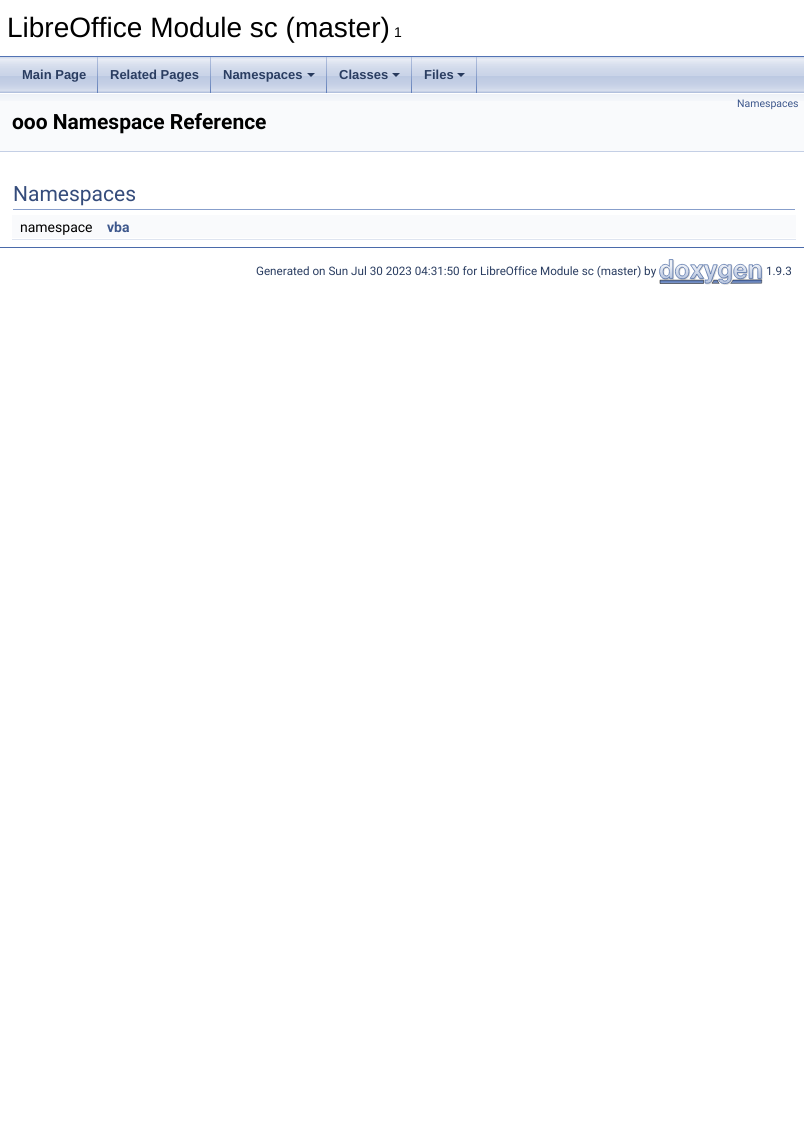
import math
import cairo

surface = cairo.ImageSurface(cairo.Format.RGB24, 804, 1130)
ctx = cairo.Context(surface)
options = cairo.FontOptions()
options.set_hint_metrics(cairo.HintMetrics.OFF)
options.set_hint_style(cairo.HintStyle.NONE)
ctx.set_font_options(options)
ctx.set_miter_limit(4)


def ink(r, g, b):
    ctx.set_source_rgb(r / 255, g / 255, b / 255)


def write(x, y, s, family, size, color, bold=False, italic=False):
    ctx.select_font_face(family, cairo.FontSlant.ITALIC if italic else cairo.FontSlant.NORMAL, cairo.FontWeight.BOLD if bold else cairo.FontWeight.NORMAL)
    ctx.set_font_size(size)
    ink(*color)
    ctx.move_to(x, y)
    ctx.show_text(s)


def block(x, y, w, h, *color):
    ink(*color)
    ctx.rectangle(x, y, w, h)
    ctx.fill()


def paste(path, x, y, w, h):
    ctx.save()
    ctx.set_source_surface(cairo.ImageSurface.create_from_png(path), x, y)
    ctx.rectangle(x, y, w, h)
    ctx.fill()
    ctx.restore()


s1 = dict(family="Liberation Sans", size=28, color=(0, 0, 0))
s2 = dict(family="Liberation Sans", size=14, color=(0, 0, 0))
s3 = dict(family="Liberation Sans", size=13, color=(42, 61, 97), bold=True)
s4 = dict(family="Roboto", size=10.5, color=(61, 87, 140))
s5 = dict(family="Roboto", size=21, color=(0, 0, 0), bold=True)
s6 = dict(family="Roboto", size=21, color=(53, 76, 123))
s7 = dict(family="Roboto", size=14, color=(0, 0, 0))
s8 = dict(family="Roboto", size=14, color=(61, 87, 140), bold=True)
s9 = dict(family="Roboto", size=11.65, color=(42, 61, 97))

ink(255, 255, 255)
ctx.paint()
block(0, 56, 804, 1, 83, 115, 180)
write(7, 37, "LibreOffice Module sc (master)", **s1)
write(394, 37, "1", **s2)
paste("pic1.png", 0, 57, 804, 36)
paste("pic2.png", 97, 57, 1, 36)
write(22, 79, "Main Page", **s3)
paste("pic2.png", 210, 57, 1, 36)
write(110, 79, "Related Pages", **s3)
paste("pic2.png", 326, 57, 1, 36)
write(223, 79, "Namespaces", **s3)
ink(40, 58, 93)
ctx.new_path()
ctx.move_to(307, 73)
ctx.line_to(315, 73)
ctx.line_to(311, 77)
ctx.close_path()
ctx.fill()
paste("pic2.png", 411, 57, 1, 36)
write(339, 79, "Classes", **s3)
ink(40, 58, 93)
ctx.new_path()
ctx.move_to(392, 73)
ctx.line_to(400, 73)
ctx.line_to(396, 77)
ctx.close_path()
ctx.fill()
paste("pic2.png", 476, 57, 1, 36)
write(424, 79, "Files", **s3)
ink(40, 58, 93)
ctx.new_path()
ctx.move_to(457, 73)
ctx.line_to(465, 73)
ctx.line_to(461, 77)
ctx.close_path()
ctx.fill()
block(0, 101, 804, 50, 249, 250, 252)
paste("pic3.png", 0, 93, 804, 8)
block(0, 151, 804, 1, 196, 207, 229)
write(737, 107, "Namespaces", **s4)
write(12, 129, "ooo Namespace Reference", **s5)
block(13, 209, 782, 1, 135, 158, 203)
write(13, 201, "Namespaces", **s6)
block(12, 215, 784, 23, 249, 250, 252)
write(20, 232, "namespace", **s7)
write(107, 232, "vba", **s8)
block(12, 239, 784, 1, 222, 228, 240)
block(0, 247, 804, 1, 74, 106, 170)
write(256, 275, "Generated on Sun Jul 30 2023 04:31:50 for LibreOffice Module sc (master) by", **s9)
paste("pic4.png", 659, 259, 104, 26)
write(766, 275, "1.9.3", **s9)
surface.write_to_png("screenshot.png")
